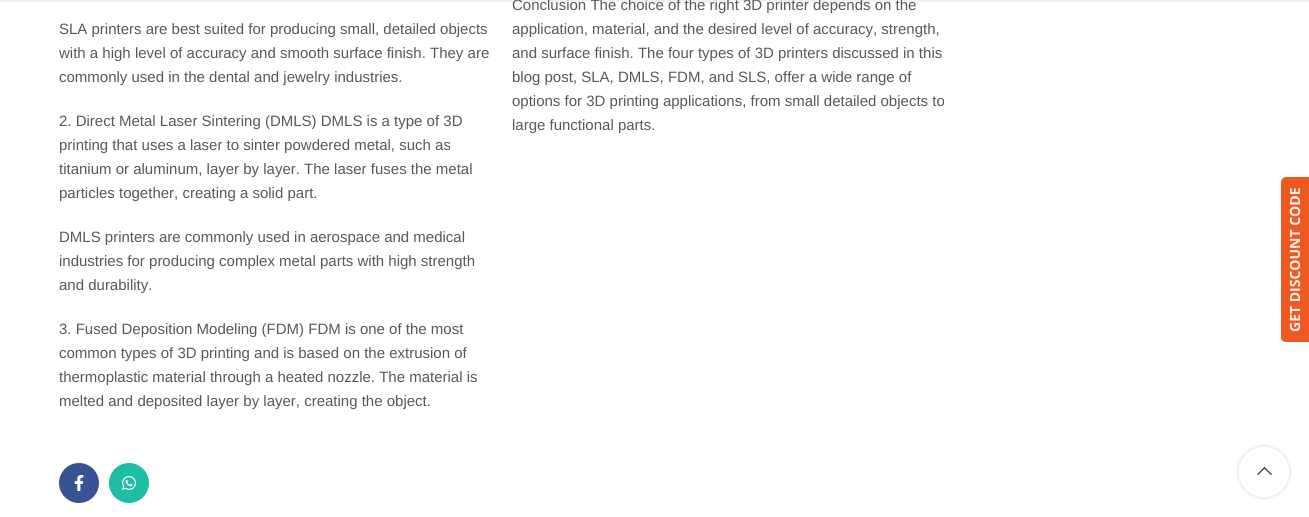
import math
import cairo

surface = cairo.ImageSurface(cairo.Format.RGB24, 1309, 517)
ctx = cairo.Context(surface)
options = cairo.FontOptions()
options.set_hint_metrics(cairo.HintMetrics.OFF)
options.set_hint_style(cairo.HintStyle.NONE)
ctx.set_font_options(options)
ctx.set_miter_limit(4)


def ink(r, g, b):
    ctx.set_source_rgb(r / 255, g / 255, b / 255)


def write(x, y, s, family, size, color, bold=False, italic=False):
    ctx.select_font_face(family, cairo.FontSlant.ITALIC if italic else cairo.FontSlant.NORMAL, cairo.FontWeight.BOLD if bold else cairo.FontWeight.NORMAL)
    ctx.set_font_size(size)
    ink(*color)
    ctx.move_to(x, y)
    ctx.show_text(s)


def round_path(x, y, w, h, r):
    ctx.new_sub_path()
    for i, (u, v) in enumerate([(x + w - r, y + h - r), (x + r, y + h - r), (x + r, y + r), (x + w - r, y + r)]):
        ctx.arc(u, v, r, i * math.pi / 2, (i + 1) * math.pi / 2)
    ctx.close_path()


def blur_box(x, y, w, h, r, blur, alpha):
    ctx.push_group_with_content(cairo.Content.ALPHA)
    ctx.set_operator(cairo.Operator.SOURCE)
    for i in range(15, -16, -2):
        e = blur * i / 6
        if min(w, h) + 2 * e > 0:
            ctx.set_source_rgba(0, 0, 0, alpha * math.erfc((i - 1) / 8.5) / 2)
            round_path(x - e, y - e, w + 2 * e, h + 2 * e, max(0, min(r + e + blur * .6, min(w, h) / 2 + e)))
            ctx.fill()
    ctx.mask(ctx.pop_group())


def paste(path, x, y, w, h):
    ctx.save()
    ctx.set_source_surface(cairo.ImageSurface.create_from_png(path), x, y)
    ctx.rectangle(x, y, w, h)
    ctx.fill()
    ctx.restore()


s1 = dict(family="Liberation Sans", size=15, color=(84, 89, 95))
s2 = dict(family="Open Sans", size=14, color=(241, 241, 241), bold=True)

ink(255, 255, 255)
ctx.paint()
ink(0, 0, 0)
blur_box(0, -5, 1309, 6, 0, 1.5, 0.1)
write(59, 34, "SLA printers are best suited for producing small, detailed objects", **s1)
write(59, 58, "with a high level of accuracy and smooth surface finish. They are", **s1)
write(59, 82, "commonly used in the dental and jewelry industries.", **s1)
write(59, 126, "2. Direct Metal Laser Sintering (DMLS) DMLS is a type of 3D", **s1)
write(59, 150, "printing that uses a laser to sinter powdered metal, such as", **s1)
write(59, 174, "titanium or aluminum, layer by layer. The laser fuses the metal", **s1)
write(59, 198, "particles together, creating a solid part.", **s1)
write(59, 242, "DMLS printers are commonly used in aerospace and medical", **s1)
write(59, 266, "industries for producing complex metal parts with high strength", **s1)
write(59, 290, "and durability.", **s1)
write(59, 334, "3. Fused Deposition Modeling (FDM) FDM is one of the most", **s1)
write(59, 358, "common types of 3D printing and is based on the extrusion of", **s1)
write(59, 382, "thermoplastic material through a heated nozzle. The material is", **s1)
write(59, 406, "melted and deposited layer by layer, creating the object.", **s1)
write(512, 10, "Conclusion The choice of the right 3D printer depends on the", **s1)
write(512, 34, "application, material, and the desired level of accuracy, strength,", **s1)
write(512, 58, "and surface finish. The four types of 3D printers discussed in this", **s1)
write(512, 82, "blog post, SLA, DMLS, FDM, and SLS, offer a wide range of", **s1)
write(512, 106, "options for 3D printing applications, from small detailed objects to", **s1)
write(512, 130, "large functional parts.", **s1)
ink(54, 84, 147)
ctx.new_path()
ctx.arc(79, 483, 20, 0, 2 * math.pi)
ctx.fill()
paste("pic1.png", 74, 475, 10, 16)
ink(30, 190, 165)
ctx.arc(129, 483, 20, 0, 2 * math.pi)
ctx.fill()
paste("pic2.png", 122, 476, 14, 14)
ink(238, 89, 33)
ctx.new_path()
ctx.move_to(1281, 337)
ctx.line_to(1281, 182)
ctx.curve_to(1281, 180, 1283, 177, 1286, 177)
ctx.line_to(1309, 177)
ctx.line_to(1309, 342)
ctx.line_to(1286, 342)
ctx.curve_to(1283, 342, 1281, 340, 1281, 337)
ctx.close_path()
ctx.fill()
ctx.save()
ctx.translate(1300, 332)
ctx.rotate(-90 * math.pi / 180)
write(0, 0, "GET DISCOUNT CODE", **s2)
ctx.restore()
ctx.save()
ctx.set_fill_rule(cairo.FillRule.EVEN_ODD)
ctx.new_path()
ctx.move_to(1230, 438)
ctx.line_to(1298, 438)
ctx.line_to(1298, 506)
ctx.line_to(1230, 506)
ctx.close_path()
ctx.move_to(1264, 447)
ctx.curve_to(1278, 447, 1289, 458, 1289, 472)
ctx.curve_to(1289, 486, 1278, 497, 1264, 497)
ctx.curve_to(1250, 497, 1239, 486, 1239, 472)
ctx.curve_to(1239, 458, 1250, 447, 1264, 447)
ctx.close_path()
ctx.clip()
ink(0, 0, 0)
blur_box(1239, 447, 50, 50, 25, 2.5, 0.17)
ctx.restore()
ctx.set_source_rgba(1, 1, 1, 0.9)
ctx.arc(1264, 472, 25, 0, 2 * math.pi)
ctx.fill()
paste("pic3.png", 1257, 466, 15, 9)
surface.write_to_png("screenshot.png")
